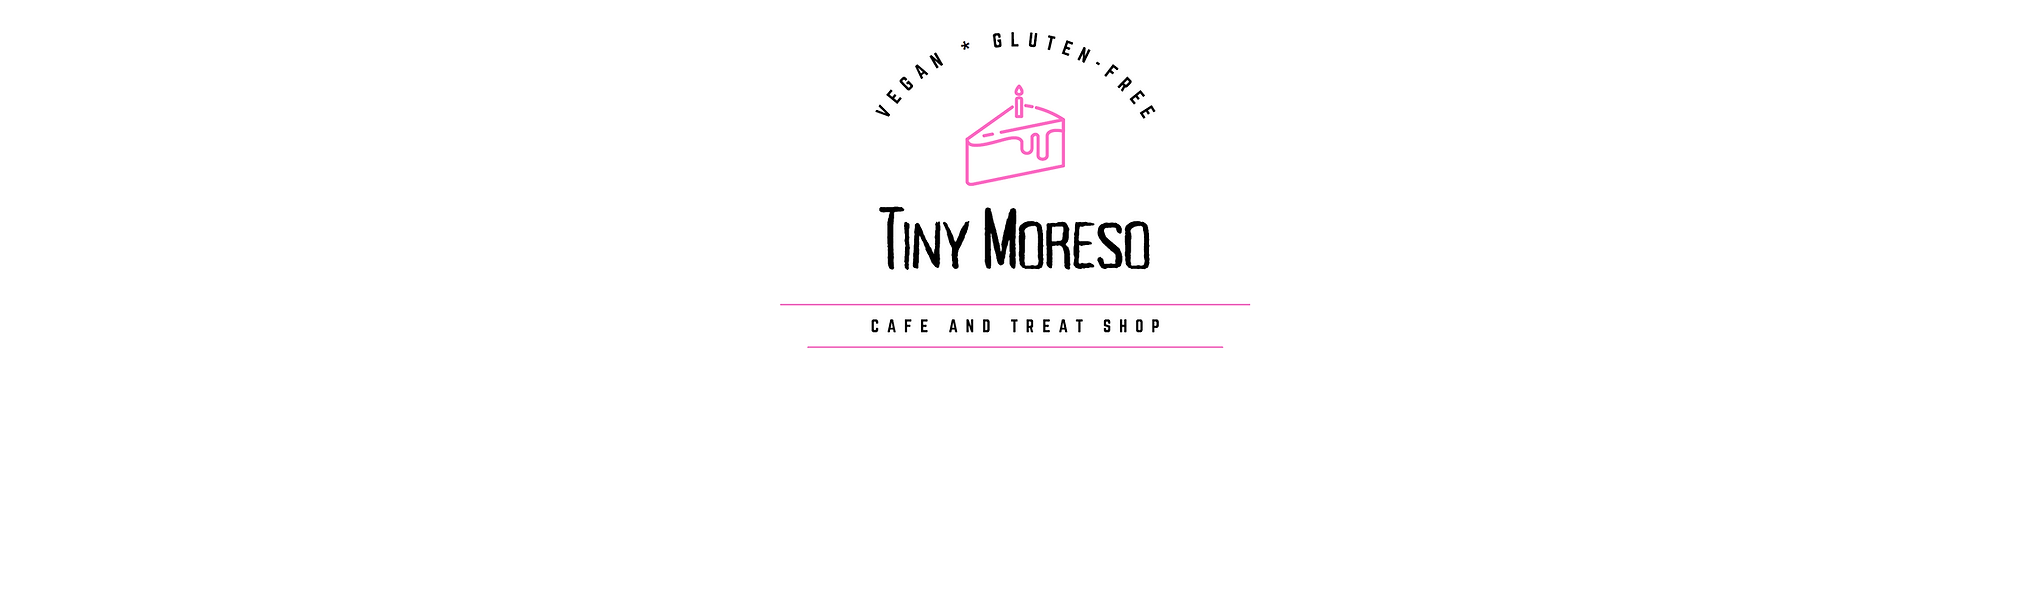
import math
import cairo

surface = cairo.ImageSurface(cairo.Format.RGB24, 2032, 597)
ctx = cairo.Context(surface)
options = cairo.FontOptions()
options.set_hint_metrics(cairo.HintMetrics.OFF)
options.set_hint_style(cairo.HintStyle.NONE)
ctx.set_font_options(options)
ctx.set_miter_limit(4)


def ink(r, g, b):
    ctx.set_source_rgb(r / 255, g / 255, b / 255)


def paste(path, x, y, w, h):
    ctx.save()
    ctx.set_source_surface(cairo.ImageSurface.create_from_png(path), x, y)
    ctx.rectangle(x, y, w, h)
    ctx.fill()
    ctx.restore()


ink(255, 255, 255)
ctx.paint()
paste("pic1.png", 780, 30, 471, 318)
surface.write_to_png("screenshot.png")
